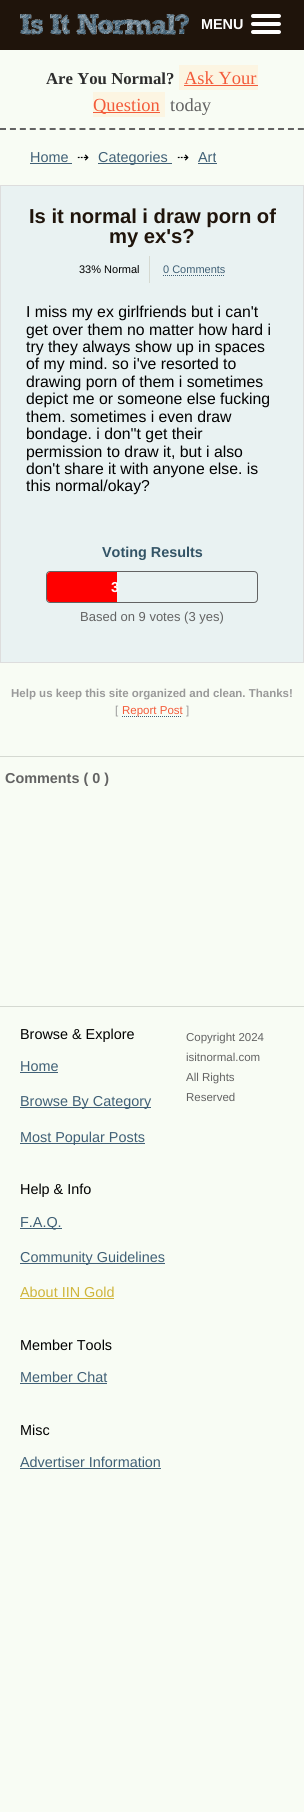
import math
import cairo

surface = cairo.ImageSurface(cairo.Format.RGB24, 304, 1812)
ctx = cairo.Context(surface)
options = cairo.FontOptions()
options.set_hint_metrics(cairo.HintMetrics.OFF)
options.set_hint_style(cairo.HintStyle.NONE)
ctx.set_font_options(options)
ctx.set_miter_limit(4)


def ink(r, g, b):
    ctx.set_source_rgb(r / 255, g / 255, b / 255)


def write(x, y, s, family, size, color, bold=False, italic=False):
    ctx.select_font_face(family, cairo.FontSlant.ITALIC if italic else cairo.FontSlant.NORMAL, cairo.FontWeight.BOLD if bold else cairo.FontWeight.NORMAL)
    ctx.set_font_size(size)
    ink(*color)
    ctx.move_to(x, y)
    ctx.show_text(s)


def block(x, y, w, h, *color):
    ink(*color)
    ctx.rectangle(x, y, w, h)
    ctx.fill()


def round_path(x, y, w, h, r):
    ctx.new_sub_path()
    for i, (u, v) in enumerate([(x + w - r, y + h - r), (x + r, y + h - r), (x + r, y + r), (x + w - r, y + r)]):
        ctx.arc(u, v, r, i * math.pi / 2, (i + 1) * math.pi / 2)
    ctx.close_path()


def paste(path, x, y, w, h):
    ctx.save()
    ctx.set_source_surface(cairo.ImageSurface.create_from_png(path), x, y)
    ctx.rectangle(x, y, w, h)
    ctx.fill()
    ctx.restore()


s1 = dict(family="Liberation Sans", size=14.4, color=(255, 255, 255), bold=True)
s2 = dict(family="Liberation Serif", size=16.75, color=(45, 45, 45), bold=True)
s3 = dict(family="Liberation Serif", size=18.5, color=(243, 91, 58))
s4 = dict(family="Liberation Serif", size=18.5, color=(99, 99, 99))
s5 = dict(family="Liberation Sans", size=14.4, color=(64, 96, 118))
s6 = dict(family="DejaVu Sans", size=14.4, color=(0, 0, 0))
s7 = dict(family="Liberation Sans", size=20.2, color=(31, 20, 11), bold=True)
s8 = dict(family="Liberation Sans", size=11, color=(0, 0, 0))
s9 = dict(family="Liberation Sans", size=11, color=(64, 96, 118))
s10 = dict(family="Liberation Sans", size=15.8, color=(0, 0, 0))
s11 = dict(family="Liberation Sans", size=14.4, color=(51, 84, 102), bold=True)
s12 = dict(family="Liberation Sans", size=13, color=(99, 99, 99))
s13 = dict(family="Liberation Sans", size=11.5, color=(153, 153, 153), bold=True)
s14 = dict(family="Liberation Sans", size=11.5, color=(153, 153, 153))
s15 = dict(family="Liberation Sans", size=11.5, color=(243, 91, 58))
s16 = dict(family="Liberation Sans", size=14.4, color=(99, 99, 99), bold=True)
s17 = dict(family="Liberation Sans", size=14.4, color=(0, 0, 0))
s18 = dict(family="Liberation Sans", size=11.5, color=(99, 99, 99))
s19 = dict(family="Liberation Sans", size=14.4, color=(207, 181, 59))

ink(248, 252, 244)
ctx.paint()
block(0, 0, 304, 50, 31, 20, 11)
paste("pic1.png", 20, 14, 169, 21)
write(201, 29, "MENU", **s1)
round_path(251, 14, 30, 4, 2)
ctx.fill()
round_path(251, 22, 30, 4, 2)
ctx.fill()
round_path(251, 30, 30, 4, 2)
ctx.fill()
ctx.new_path()
ctx.move_to(0, 129)
ctx.line_to(304, 129)
ink(99, 99, 99)
ctx.set_dash([6, 3.93])
ctx.stroke()
write(46, 84, "Are You Normal?", **s2)
block(179, 65, 79, 25, 252, 245, 226)
write(184, 84, "Ask Your", **s3)
block(184, 85, 74, 1, 243, 91, 58)
block(93, 92, 72, 25, 252, 245, 226)
block(93, 112, 67, 1, 243, 91, 58)
write(93, 111, "Question", **s3)
write(170, 111, "today", **s4)
write(30, 162, "Home", **s5)
block(30, 163, 42, 1, 64, 96, 118)
write(77, 162, "⇢", **s6)
block(98, 163, 74, 1, 64, 96, 118)
write(98, 162, "Categories", **s5)
write(177, 162, "⇢", **s6)
write(198, 162, "Art", **s5)
block(198, 163, 19, 1, 64, 96, 118)
ink(233, 242, 242)
ctx.rectangle(0.5, 185.5, 303, 477)
ctx.fill_preserve()
ink(221, 221, 221)
ctx.set_line_width(1)
ctx.set_dash([])
ctx.stroke()
write(29, 223, "Is it normal i draw porn of", **s7)
write(109, 243, "my ex's?", **s7)
block(149, 256, 1, 27, 213, 217, 209)
write(79, 273, "33% Normal", **s8)
write(163, 273, "0 Comments", **s9)
ctx.new_path()
ctx.move_to(163, 275.5)
ctx.line_to(225, 275.5)
ctx.set_dash([1, 1])
ctx.stroke()
write(26, 317, "I miss my ex girlfriends but i can't", **s10)
write(26, 335, "get over them no matter how hard i", **s10)
write(26, 352, "try they always show up in spaces", **s10)
write(26, 369, "of my mind. so i've resorted to", **s10)
write(26, 387, "drawing porn of them i sometimes", **s10)
write(26, 404, "depict me or someone else fucking", **s10)
write(26, 422, "them. sometimes i even draw", **s10)
write(26, 439, "bondage. i don''t get their", **s10)
write(26, 457, "permission to draw it, but i also", **s10)
write(26, 474, "don't share it with anyone else. is", **s10)
write(26, 491, "this normal/okay?", **s10)
write(102, 557, "Voting Results", **s11)
round_path(46.5, 571.5, 211, 31, 3.5)
ink(99, 99, 99)
ctx.set_dash([])
ctx.stroke()
ink(255, 0, 0)
ctx.new_path()
ctx.move_to(50, 572)
ctx.line_to(117, 572)
ctx.line_to(117, 602)
ctx.line_to(50, 602)
ctx.curve_to(48.5, 602, 47, 600.5, 47, 599)
ctx.line_to(47, 575)
ctx.curve_to(47, 573.5, 48.5, 572, 50, 572)
ctx.close_path()
ctx.fill()
write(111, 592, "3", **s1)
write(80, 621, "Based on 9 votes (3 yes)", **s12)
write(11, 697, "Help us keep this site organized and clean. Thanks!", **s13)
write(115, 714, "[", **s14)
ctx.new_path()
ctx.move_to(122, 716.5)
ctx.line_to(182, 716.5)
ink(64, 96, 118)
ctx.set_dash([1, 1])
ctx.stroke()
write(122, 714, "Report Post", **s15)
write(186, 714, "]", **s14)
block(0, 756, 304, 1, 213, 217, 209)
write(5, 783, "Comments ( 0 )", **s16)
block(0, 1006, 304, 1, 213, 217, 209)
write(20, 1039, "Browse & Explore", **s17)
write(20, 1071, "Home", **s5)
block(20, 1072, 38, 1, 64, 96, 118)
block(20, 1107, 131, 1, 64, 96, 118)
write(20, 1106, "Browse By Category", **s5)
block(20, 1143, 125, 1, 64, 96, 118)
write(20, 1142, "Most Popular Posts", **s5)
write(186, 1041, "Copyright 2024", **s18)
write(186, 1061, "isitnormal.com", **s18)
write(186, 1081, "All Rights", **s18)
write(186, 1101, "Reserved", **s18)
write(20, 1194, "Help & Info", **s17)
block(20, 1228, 42, 1, 64, 96, 118)
write(20, 1227, "F.A.Q.", **s5)
block(20, 1263, 145, 1, 64, 96, 118)
write(20, 1262, "Community Guidelines", **s5)
write(20, 1297, "About IIN Gold", **s19)
block(20, 1298, 94, 1, 207, 181, 59)
write(20, 1350, "Member Tools", **s17)
write(20, 1382, "Member Chat", **s5)
block(20, 1383, 87, 1, 64, 96, 118)
write(20, 1435, "Misc", **s17)
write(20, 1467, "Advertiser Information", **s5)
block(20, 1468, 141, 1, 64, 96, 118)
surface.write_to_png("screenshot.png")
